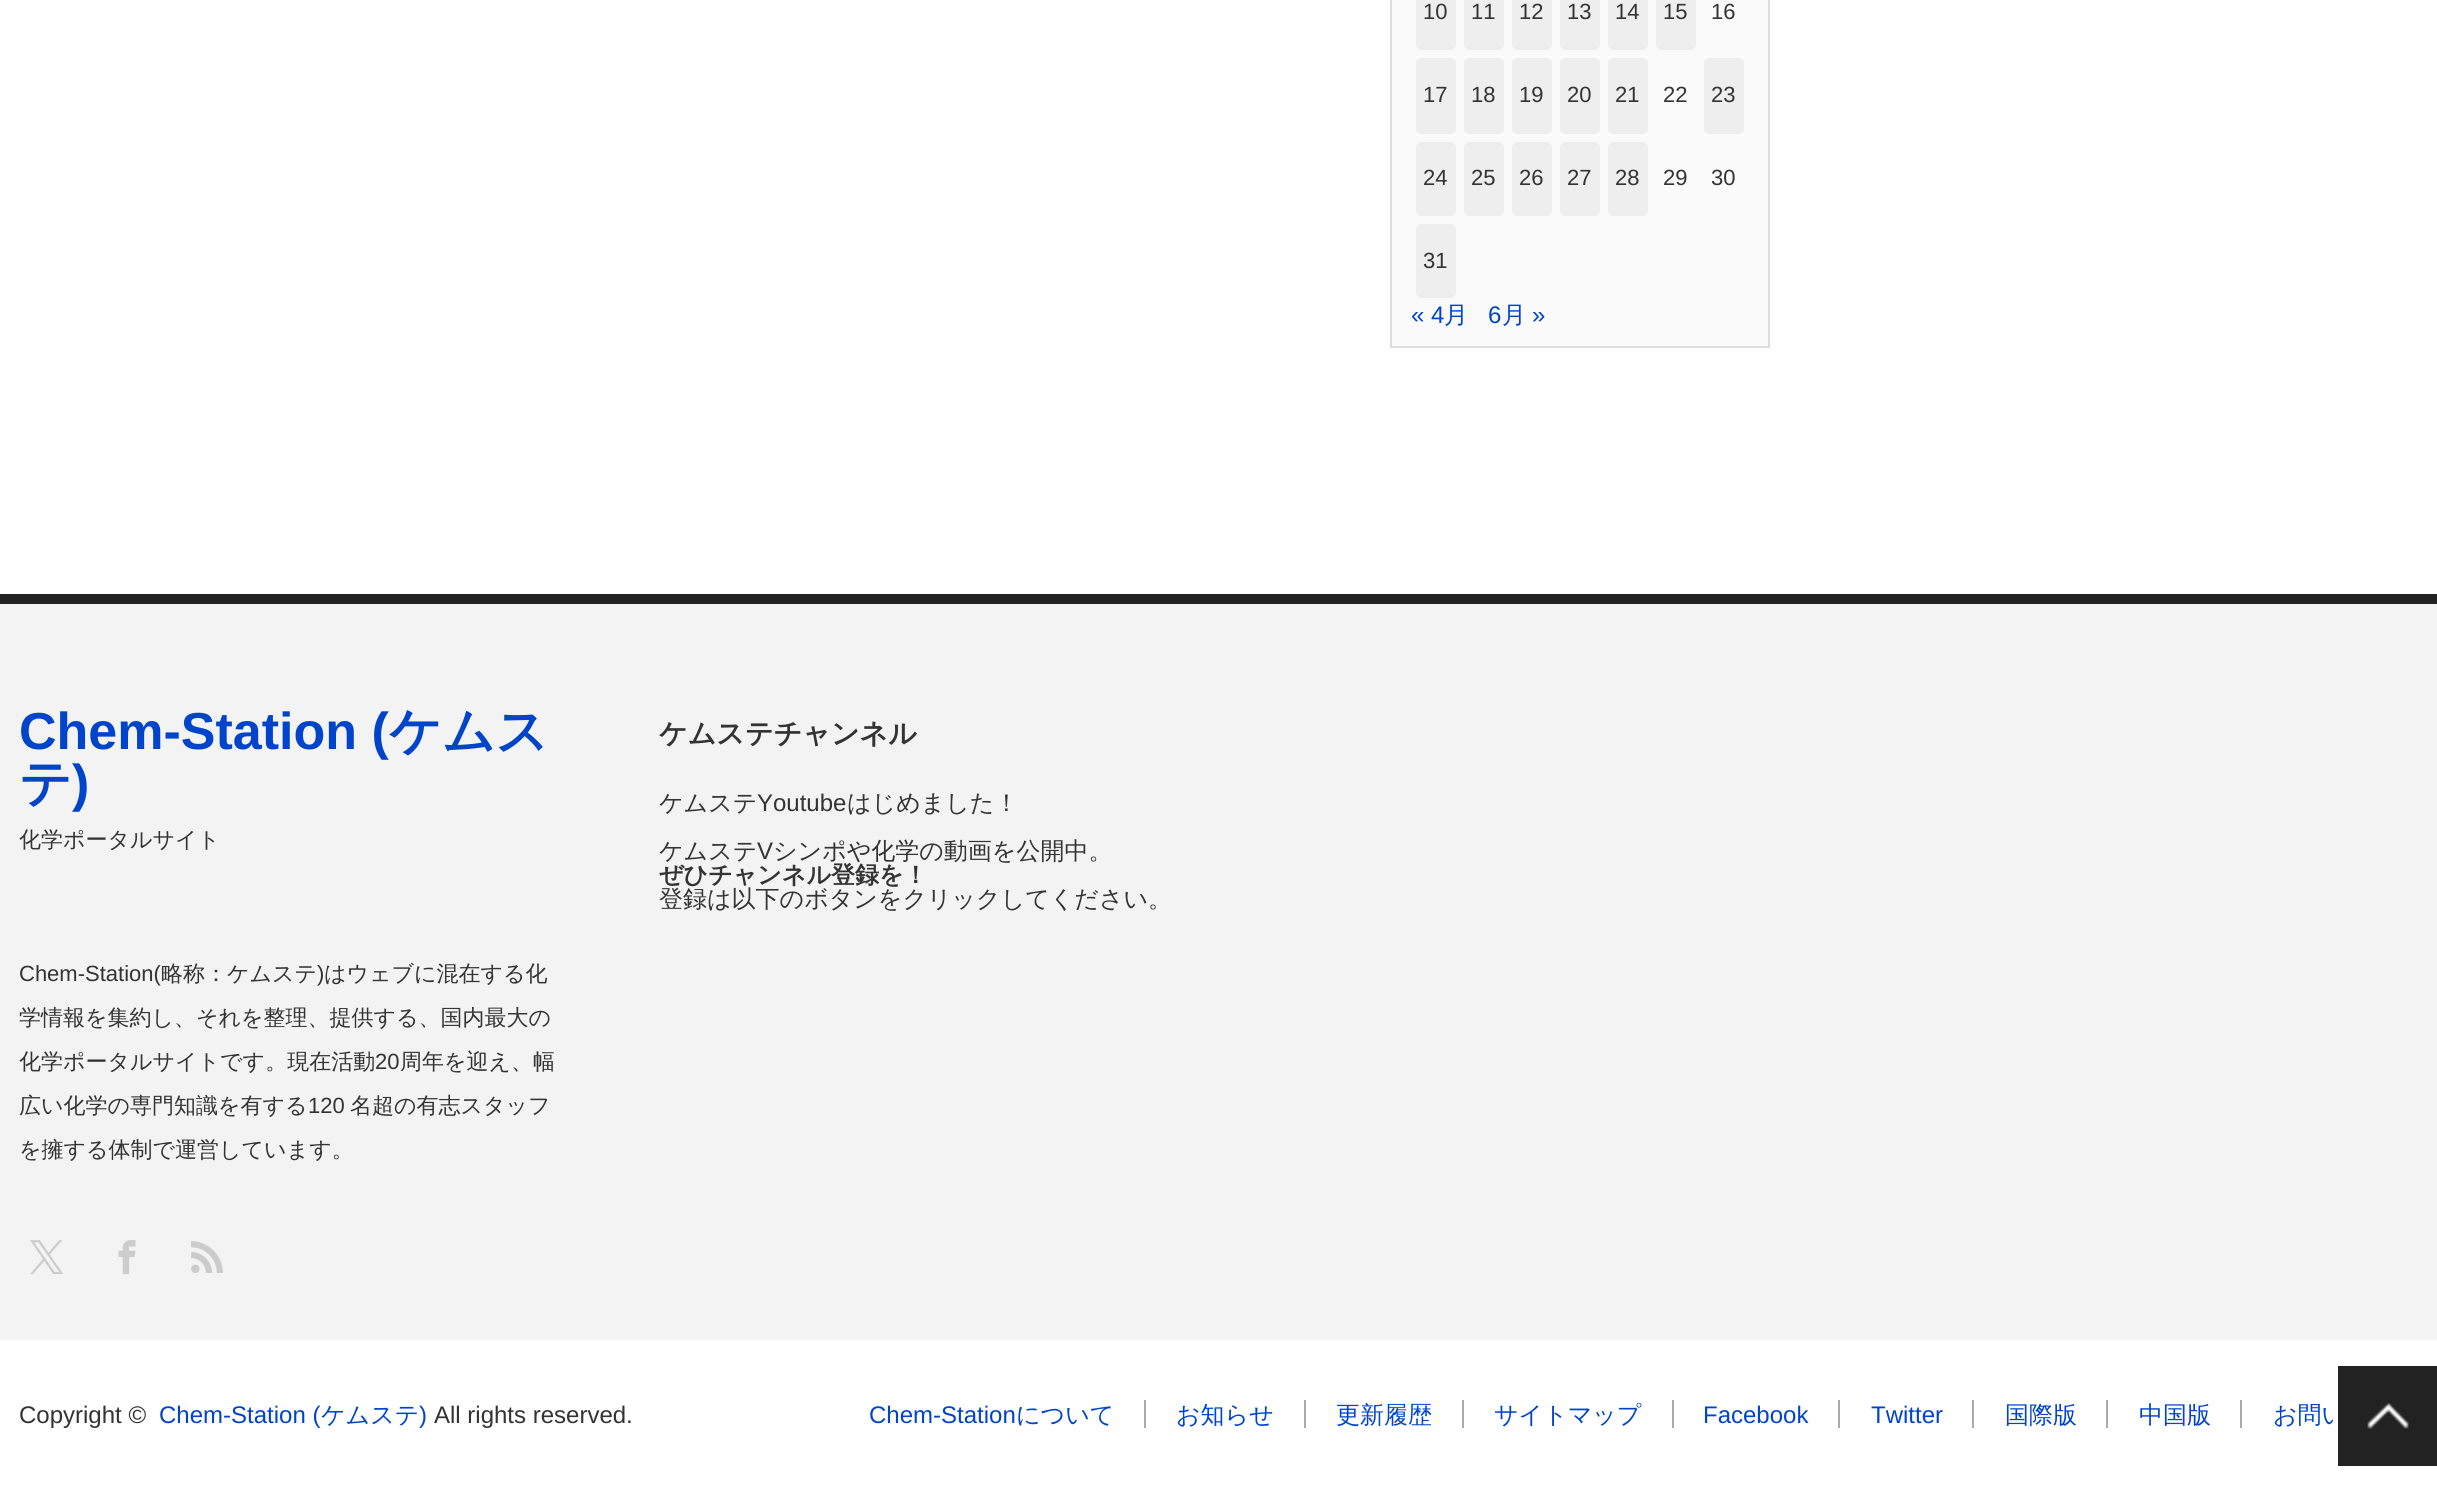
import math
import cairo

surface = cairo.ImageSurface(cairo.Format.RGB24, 2437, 1489)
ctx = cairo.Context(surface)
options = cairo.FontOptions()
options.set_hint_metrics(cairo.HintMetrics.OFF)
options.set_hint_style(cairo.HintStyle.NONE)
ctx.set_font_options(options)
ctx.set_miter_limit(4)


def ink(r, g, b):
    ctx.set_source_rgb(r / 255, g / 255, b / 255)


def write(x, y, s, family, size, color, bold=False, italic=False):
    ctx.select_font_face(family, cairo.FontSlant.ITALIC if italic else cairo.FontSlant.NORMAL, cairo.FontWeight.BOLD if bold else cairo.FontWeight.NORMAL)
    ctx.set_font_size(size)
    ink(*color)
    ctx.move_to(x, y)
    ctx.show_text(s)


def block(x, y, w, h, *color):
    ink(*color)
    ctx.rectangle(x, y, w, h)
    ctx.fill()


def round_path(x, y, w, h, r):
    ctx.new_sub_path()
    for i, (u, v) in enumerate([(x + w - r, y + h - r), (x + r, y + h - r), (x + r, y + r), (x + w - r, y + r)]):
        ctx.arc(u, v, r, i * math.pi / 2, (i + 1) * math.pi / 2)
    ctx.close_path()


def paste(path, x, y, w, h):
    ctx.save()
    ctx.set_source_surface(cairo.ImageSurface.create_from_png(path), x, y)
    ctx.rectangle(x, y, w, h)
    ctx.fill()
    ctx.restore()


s1 = dict(family="Liberation Sans", size=22, color=(51, 51, 51))
s2 = dict(family="Liberation Sans", size=24, color=(0, 68, 204))
s3 = dict(family="WenQuanYi Zen Hei Medium", size=24, color=(0, 68, 204))
s4 = dict(family="Liberation Sans", size=52, color=(0, 68, 204), bold=True)
s5 = dict(family="WenQuanYi Zen Hei", size=52, color=(0, 68, 204), bold=True)
s6 = dict(family="WenQuanYi Zen Hei Medium", size=22, color=(51, 51, 51))
s7 = dict(family="WenQuanYi Zen Hei", size=28, color=(51, 51, 51), bold=True)
s8 = dict(family="WenQuanYi Zen Hei Medium", size=24, color=(51, 51, 51))
s9 = dict(family="Liberation Sans", size=24, color=(51, 51, 51))
s10 = dict(family="WenQuanYi Zen Hei", size=24, color=(51, 51, 51), bold=True)

ink(255, 255, 255)
ctx.paint()
ink(250, 250, 250)
ctx.rectangle(1391, -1, 378, 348)
ctx.fill_preserve()
ink(221, 221, 221)
ctx.stroke()
ink(238, 238, 238)
round_path(1416, -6, 40, 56, 6)
ctx.fill()
write(1423, 19, "10", **s1)
ink(238, 238, 238)
round_path(1464, -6, 40, 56, 6)
ctx.fill()
write(1471, 19, "11", **s1)
ink(238, 238, 238)
round_path(1512, -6, 40, 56, 6)
ctx.fill()
write(1519, 19, "12", **s1)
ink(238, 238, 238)
round_path(1560, -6, 40, 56, 6)
ctx.fill()
write(1567, 19, "13", **s1)
ink(238, 238, 238)
round_path(1608, -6, 40, 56, 6)
ctx.fill()
write(1615, 19, "14", **s1)
ink(238, 238, 238)
round_path(1656, -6, 40, 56, 6)
ctx.fill()
write(1663, 19, "15", **s1)
write(1711, 19, "16", **s1)
ink(238, 238, 238)
round_path(1416, 58, 40, 76, 6)
ctx.fill()
write(1423, 102, "17", **s1)
ink(238, 238, 238)
round_path(1464, 58, 40, 76, 6)
ctx.fill()
write(1471, 102, "18", **s1)
ink(238, 238, 238)
round_path(1512, 58, 40, 76, 6)
ctx.fill()
write(1519, 102, "19", **s1)
ink(238, 238, 238)
round_path(1560, 58, 40, 76, 6)
ctx.fill()
write(1567, 102, "20", **s1)
ink(238, 238, 238)
round_path(1608, 58, 40, 76, 6)
ctx.fill()
write(1615, 102, "21", **s1)
write(1663, 102, "22", **s1)
ink(238, 238, 238)
round_path(1704, 58, 40, 76, 6)
ctx.fill()
write(1711, 102, "23", **s1)
ink(238, 238, 238)
round_path(1416, 142, 40, 74, 6)
ctx.fill()
write(1423, 185, "24", **s1)
ink(238, 238, 238)
round_path(1464, 142, 40, 74, 6)
ctx.fill()
write(1471, 185, "25", **s1)
ink(238, 238, 238)
round_path(1512, 142, 40, 74, 6)
ctx.fill()
write(1519, 185, "26", **s1)
ink(238, 238, 238)
round_path(1560, 142, 40, 74, 6)
ctx.fill()
write(1567, 185, "27", **s1)
ink(238, 238, 238)
round_path(1608, 142, 40, 74, 6)
ctx.fill()
write(1615, 185, "28", **s1)
write(1663, 185, "29", **s1)
write(1711, 185, "30", **s1)
ink(238, 238, 238)
round_path(1416, 224, 40, 74, 6)
ctx.fill()
write(1423, 268, "31", **s1)
write(1411, 323, "« 4", **s2)
write(1444, 323, "月", **s3)
write(1488, 323, "6", **s2)
write(1502, 323, "月", **s3)
write(1532, 323, "»", **s2)
block(0, 604, 2437, 736, 243, 243, 243)
block(0, 594, 2437, 10, 34, 34, 34)
write(19, 749, "Chem-Station (", **s4)
write(389, 749, "ケムス", **s5)
write(19, 801, "テ", **s5)
write(72, 801, ")", **s4)
write(19, 847, "化学ポータルサイト", **s6)
write(19, 981, "Chem-Station(", **s1)
write(161, 981, "略称：ケムステ", **s6)
write(317, 981, ")", **s1)
write(324, 981, "はウェブに混在する化", **s6)
write(19, 1025, "学情報を集約し、それを整理、提供する、国内最大の", **s6)
write(19, 1069, "化学ポータルサイトです。現在活動", **s6)
write(375, 1069, "20", **s1)
write(400, 1069, "周年を迎え、幅", **s6)
write(19, 1113, "広い化学の専門知識を有する", **s6)
write(308, 1113, "120", **s1)
write(350, 1113, "名超の有志スタッフ", **s6)
write(19, 1157, "を擁する体制で運営しています。", **s6)
paste("pic1.png", 30, 1240, 33, 34)
paste("pic2.png", 118, 1240, 18, 35)
paste("pic3.png", 191, 1241, 32, 32)
write(659, 743, "ケムステチャンネル", **s7)
write(659, 811, "ケムステ", **s8)
write(757, 811, "Youtube", **s9)
write(847, 811, "はじめました！", **s8)
write(659, 859, "ケムステ", **s8)
write(757, 859, "V", **s9)
write(773, 859, "シンポや化学の動画を公開中。", **s8)
write(659, 883, "ぜひチャンネル登録を！", **s10)
write(659, 907, "登録は以下のボタンをクリックしてください。", **s8)
write(19, 1423, "Copyright ©", **s9)
write(159, 1423, "Chem-Station (", **s2)
write(321, 1423, "ケムステ", **s3)
write(419, 1423, ")", **s2)
write(434, 1423, "All rights reserved.", **s9)
write(869, 1423, "Chem-Station", **s2)
write(1016, 1423, "について", **s3)
write(1176, 1423, "お知らせ", **s3)
block(1144, 1400, 2, 28, 170, 170, 170)
write(1336, 1423, "更新履歴", **s3)
block(1304, 1400, 2, 28, 170, 170, 170)
write(1494, 1423, "サイトマップ", **s3)
block(1462, 1400, 2, 28, 170, 170, 170)
write(1703, 1423, "Facebook", **s2)
block(1672, 1400, 2, 28, 170, 170, 170)
write(1871, 1423, "Twitter", **s2)
block(1838, 1400, 2, 28, 170, 170, 170)
write(2005, 1423, "国際版", **s3)
block(1972, 1400, 2, 28, 170, 170, 170)
write(2139, 1423, "中国版", **s3)
block(2106, 1400, 2, 28, 170, 170, 170)
write(2273, 1423, "お問い", **s3)
block(2240, 1400, 2, 28, 170, 170, 170)
block(2338, 1366, 99, 100, 34, 34, 34)
paste("pic4.png", 2367, 1403, 42, 26)
surface.write_to_png("screenshot.png")
